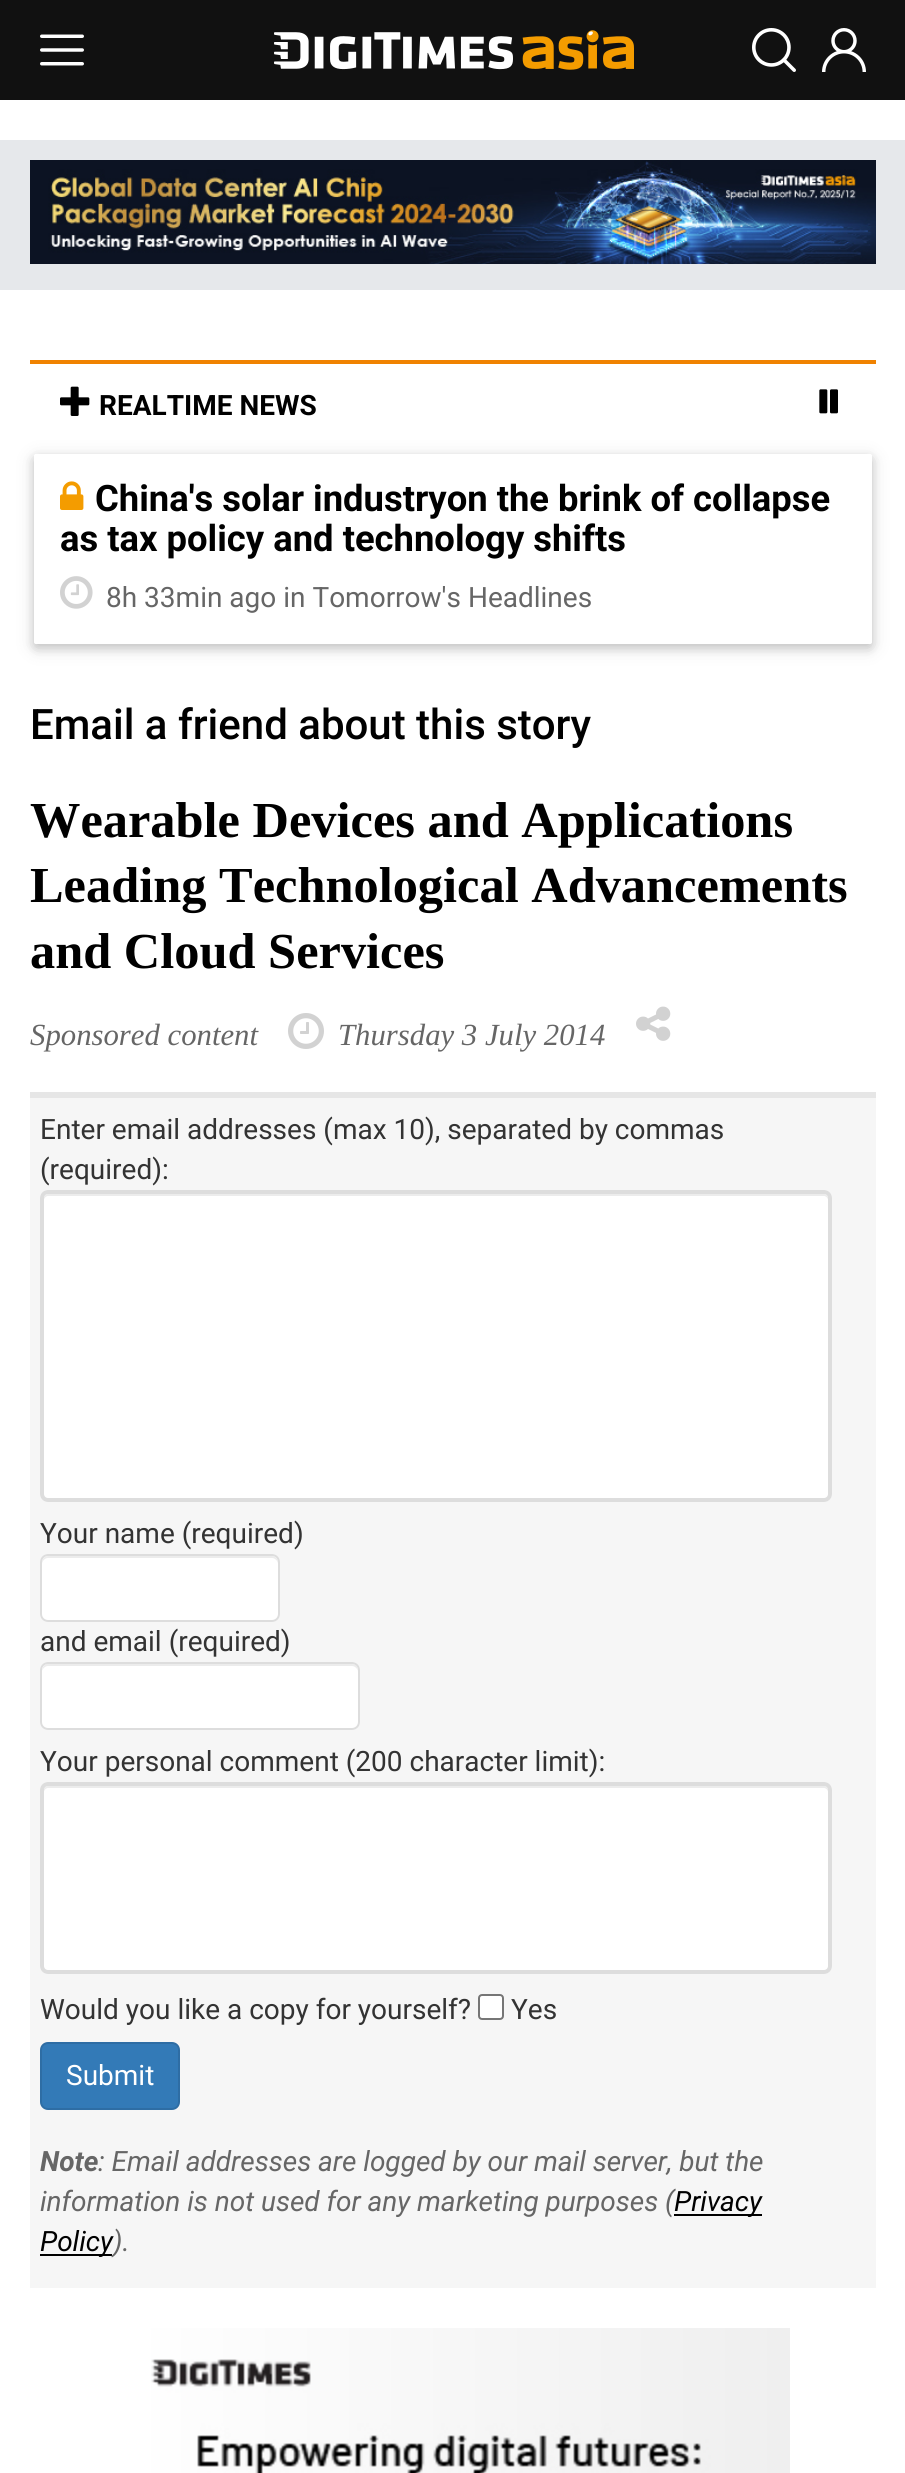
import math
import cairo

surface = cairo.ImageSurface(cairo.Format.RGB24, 905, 2473)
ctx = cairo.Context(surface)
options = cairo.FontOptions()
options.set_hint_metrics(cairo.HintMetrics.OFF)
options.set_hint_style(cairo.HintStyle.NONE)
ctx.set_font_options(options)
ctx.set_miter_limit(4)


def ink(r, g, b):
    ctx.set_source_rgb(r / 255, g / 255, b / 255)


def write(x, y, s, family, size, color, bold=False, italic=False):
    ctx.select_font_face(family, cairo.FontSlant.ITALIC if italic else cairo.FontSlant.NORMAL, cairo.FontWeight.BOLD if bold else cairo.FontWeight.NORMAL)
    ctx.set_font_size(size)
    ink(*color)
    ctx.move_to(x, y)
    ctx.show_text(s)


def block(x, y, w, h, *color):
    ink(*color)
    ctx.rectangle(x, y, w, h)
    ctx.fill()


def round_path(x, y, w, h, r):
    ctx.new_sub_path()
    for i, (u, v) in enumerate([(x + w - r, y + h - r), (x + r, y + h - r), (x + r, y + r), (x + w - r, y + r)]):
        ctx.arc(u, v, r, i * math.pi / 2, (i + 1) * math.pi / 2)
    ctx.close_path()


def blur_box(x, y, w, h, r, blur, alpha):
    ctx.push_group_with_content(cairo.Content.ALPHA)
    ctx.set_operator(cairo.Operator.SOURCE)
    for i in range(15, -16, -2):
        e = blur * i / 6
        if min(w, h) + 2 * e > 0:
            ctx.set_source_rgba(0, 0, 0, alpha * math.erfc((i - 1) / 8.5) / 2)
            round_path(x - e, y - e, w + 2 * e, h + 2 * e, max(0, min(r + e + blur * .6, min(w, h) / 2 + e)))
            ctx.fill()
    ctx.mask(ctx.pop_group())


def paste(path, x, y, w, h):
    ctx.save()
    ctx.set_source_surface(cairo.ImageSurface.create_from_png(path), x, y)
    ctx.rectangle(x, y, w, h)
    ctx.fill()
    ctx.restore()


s1 = dict(family="Roboto", size=28, color=(0, 0, 0), bold=True)
s2 = dict(family="Roboto", size=36.4, color=(0, 0, 0), bold=True)
s3 = dict(family="Roboto", size=28, color=(102, 102, 102))
s4 = dict(family="Roboto Medium", size=42, color=(0, 0, 0))
s5 = dict(family="Liberation Serif", size=50.4, color=(0, 0, 0), bold=True)
s6 = dict(family="Liberation Serif", size=30.75, color=(102, 102, 102), italic=True)
s7 = dict(family="Roboto", size=28, color=(51, 51, 51))
s8 = dict(family="Roboto", size=28, color=(255, 255, 255))
s9 = dict(family="Roboto", size=28, color=(102, 102, 102), bold=True, italic=True)
s10 = dict(family="Roboto", size=28, color=(102, 102, 102), italic=True)
s11 = dict(family="Roboto", size=28, color=(0, 0, 0), italic=True)

ink(255, 255, 255)
ctx.paint()
block(0, 0, 905, 100, 17, 17, 17)
paste("pic1.png", 40, 34, 44, 32)
paste("pic2.png", 274, 30, 360, 40)
paste("pic3.png", 752, 28, 44, 44)
paste("pic4.png", 822, 28, 44, 44)
block(0, 140, 905, 150, 230, 232, 235)
paste("pic5.png", 30, 160, 846, 104)
block(30, 360, 846, 4, 240, 130, 0)
paste("pic6.png", 60, 386, 30, 30)
write(99, 415, "REALTIME NEWS", **s1)
paste("pic7.png", 819, 389, 19, 25)
ctx.save()
ctx.set_fill_rule(cairo.FillRule.EVEN_ODD)
ctx.new_path()
ctx.move_to(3, 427)
ctx.line_to(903, 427)
ctx.line_to(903, 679)
ctx.line_to(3, 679)
ctx.close_path()
ctx.move_to(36, 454)
ctx.line_to(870, 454)
ctx.curve_to(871, 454, 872, 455, 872, 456)
ctx.line_to(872, 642)
ctx.curve_to(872, 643, 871, 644, 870, 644)
ctx.line_to(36, 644)
ctx.curve_to(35, 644, 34, 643, 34, 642)
ctx.line_to(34, 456)
ctx.curve_to(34, 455, 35, 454, 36, 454)
ctx.close_path()
ctx.clip()
ink(0, 0, 0)
blur_box(34, 458, 838, 190, 2, 10, 0.12)
ctx.restore()
ctx.save()
ctx.set_fill_rule(cairo.FillRule.EVEN_ODD)
ctx.new_path()
ctx.move_to(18, 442)
ctx.line_to(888, 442)
ctx.line_to(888, 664)
ctx.line_to(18, 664)
ctx.close_path()
ctx.move_to(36, 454)
ctx.line_to(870, 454)
ctx.curve_to(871, 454, 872, 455, 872, 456)
ctx.line_to(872, 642)
ctx.curve_to(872, 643, 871, 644, 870, 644)
ctx.line_to(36, 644)
ctx.curve_to(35, 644, 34, 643, 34, 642)
ctx.line_to(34, 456)
ctx.curve_to(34, 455, 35, 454, 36, 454)
ctx.close_path()
ctx.clip()
ink(0, 0, 0)
blur_box(34, 458, 838, 190, 2, 5, 0.16)
ctx.restore()
paste("pic8.png", 60, 481, 24, 29)
write(95, 511, "China's solar industryon the brink of collapse", **s2)
write(60, 551, "as tax policy and technology shifts", **s2)
paste("pic9.png", 60, 576, 33, 33)
write(106, 607, "8h 33min ago in Tomorrow's Headlines", **s3)
write(30, 739, "Email a friend about this story", **s4)
write(30, 837, "Wearable Devices and Applications", **s5)
write(30, 902, "Leading Technological Advancements", **s5)
write(30, 968, "and Cloud Services", **s5)
write(30, 1045, "Sponsored content", **s6)
paste("pic10.png", 288, 1013, 36, 36)
write(338, 1045, "Thursday 3 July 2014", **s6)
paste("pic11.png", 636, 1006, 35, 35)
block(30, 1098, 846, 1190, 246, 246, 246)
block(30, 1092, 846, 6, 230, 230, 230)
write(40, 1139, "Enter email addresses (max 10), separated by commas", **s7)
write(40, 1179, "(required):", **s7)
ink(255, 255, 255)
round_path(40, 1190, 792, 312, 8)
ctx.fill()
ink(236, 236, 236)
ctx.new_path()
ctx.move_to(48, 1196)
ctx.line_to(824, 1196)
ctx.curve_to(826, 1196, 828, 1198, 828, 1200)
ctx.line_to(828, 1198)
ctx.curve_to(828, 1196, 826, 1194, 824, 1194)
ctx.line_to(48, 1194)
ctx.curve_to(46, 1194, 44, 1196, 44, 1198)
ctx.line_to(44, 1200)
ctx.curve_to(44, 1198, 46, 1196, 48, 1196)
ctx.close_path()
ctx.fill()
round_path(42, 1192, 788, 308, 6)
ink(221, 221, 221)
ctx.set_line_width(4)
ctx.stroke()
write(40, 1543, "Your name (required)", **s7)
ink(255, 255, 255)
round_path(40, 1554, 240, 68, 8)
ctx.fill()
ink(236, 236, 236)
ctx.new_path()
ctx.move_to(48, 1558)
ctx.line_to(272, 1558)
ctx.curve_to(275, 1558, 278, 1561, 278, 1564)
ctx.line_to(278, 1562)
ctx.curve_to(278, 1559, 275, 1556, 272, 1556)
ctx.line_to(48, 1556)
ctx.curve_to(45, 1556, 42, 1559, 42, 1562)
ctx.line_to(42, 1564)
ctx.curve_to(42, 1561, 45, 1558, 48, 1558)
ctx.close_path()
ctx.fill()
round_path(41, 1555, 238, 66, 7)
ink(221, 221, 221)
ctx.set_line_width(2)
ctx.stroke()
write(40, 1651, "and email (required)", **s7)
ink(255, 255, 255)
round_path(40, 1662, 320, 68, 8)
ctx.fill()
ink(236, 236, 236)
ctx.new_path()
ctx.move_to(48, 1666)
ctx.line_to(352, 1666)
ctx.curve_to(355, 1666, 358, 1669, 358, 1672)
ctx.curve_to(358, 1668, 357, 1664, 352, 1664)
ctx.line_to(47, 1664)
ctx.curve_to(43, 1665, 42, 1669, 42, 1672)
ctx.curve_to(42, 1669, 45, 1666, 48, 1666)
ctx.close_path()
ctx.fill()
round_path(41, 1663, 318, 66, 7)
ink(221, 221, 221)
ctx.stroke()
write(40, 1771, "Your personal comment (200 character limit):", **s7)
ink(255, 255, 255)
round_path(40, 1782, 792, 192, 8)
ctx.fill()
ink(236, 236, 236)
ctx.new_path()
ctx.move_to(48, 1788)
ctx.line_to(824, 1788)
ctx.curve_to(826, 1788, 828, 1790, 828, 1792)
ctx.line_to(828, 1790)
ctx.curve_to(828, 1788, 826, 1786, 824, 1786)
ctx.line_to(48, 1786)
ctx.curve_to(46, 1786, 44, 1788, 44, 1790)
ctx.line_to(44, 1792)
ctx.curve_to(44, 1790, 46, 1788, 48, 1788)
ctx.close_path()
ctx.fill()
round_path(42, 1784, 788, 188, 6)
ink(221, 221, 221)
ctx.set_line_width(4)
ctx.stroke()
write(40, 2019, "Would you like a copy for yourself?", **s7)
ink(255, 255, 255)
round_path(479, 1995, 24, 24, 3)
ctx.fill_preserve()
ink(118, 118, 118)
ctx.set_line_width(2)
ctx.stroke()
write(511, 2019, "Yes", **s7)
ink(51, 122, 183)
round_path(41, 2043, 138, 66, 7)
ctx.fill_preserve()
ink(46, 109, 164)
ctx.stroke()
write(66, 2085, "Submit", **s8)
write(40, 2171, "Note", **s9)
write(98, 2171, ": Email addresses are logged by our mail server, but the", **s10)
write(40, 2211, "information is not used for any marketing purposes (", **s10)
block(674, 2214, 88, 2, 0, 0, 0)
write(674, 2211, "Privacy", **s11)
block(40, 2254, 72, 2, 0, 0, 0)
write(40, 2251, "Policy", **s11)
write(113, 2251, ").", **s10)
paste("pic12.png", 151, 2328, 639, 145)
surface.write_to_png("screenshot.png")
